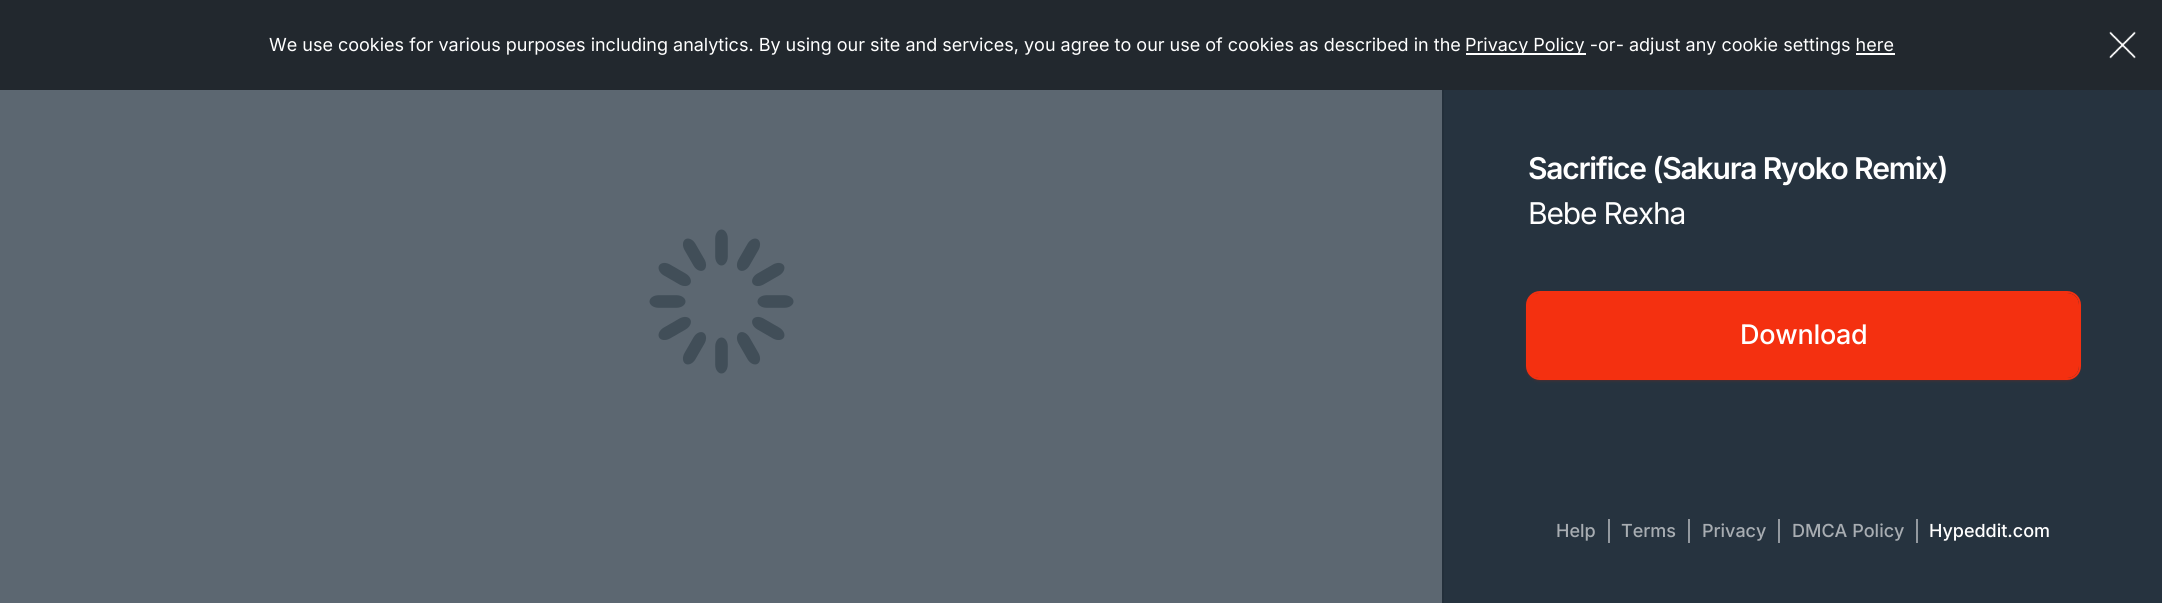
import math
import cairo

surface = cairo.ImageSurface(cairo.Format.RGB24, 2162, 603)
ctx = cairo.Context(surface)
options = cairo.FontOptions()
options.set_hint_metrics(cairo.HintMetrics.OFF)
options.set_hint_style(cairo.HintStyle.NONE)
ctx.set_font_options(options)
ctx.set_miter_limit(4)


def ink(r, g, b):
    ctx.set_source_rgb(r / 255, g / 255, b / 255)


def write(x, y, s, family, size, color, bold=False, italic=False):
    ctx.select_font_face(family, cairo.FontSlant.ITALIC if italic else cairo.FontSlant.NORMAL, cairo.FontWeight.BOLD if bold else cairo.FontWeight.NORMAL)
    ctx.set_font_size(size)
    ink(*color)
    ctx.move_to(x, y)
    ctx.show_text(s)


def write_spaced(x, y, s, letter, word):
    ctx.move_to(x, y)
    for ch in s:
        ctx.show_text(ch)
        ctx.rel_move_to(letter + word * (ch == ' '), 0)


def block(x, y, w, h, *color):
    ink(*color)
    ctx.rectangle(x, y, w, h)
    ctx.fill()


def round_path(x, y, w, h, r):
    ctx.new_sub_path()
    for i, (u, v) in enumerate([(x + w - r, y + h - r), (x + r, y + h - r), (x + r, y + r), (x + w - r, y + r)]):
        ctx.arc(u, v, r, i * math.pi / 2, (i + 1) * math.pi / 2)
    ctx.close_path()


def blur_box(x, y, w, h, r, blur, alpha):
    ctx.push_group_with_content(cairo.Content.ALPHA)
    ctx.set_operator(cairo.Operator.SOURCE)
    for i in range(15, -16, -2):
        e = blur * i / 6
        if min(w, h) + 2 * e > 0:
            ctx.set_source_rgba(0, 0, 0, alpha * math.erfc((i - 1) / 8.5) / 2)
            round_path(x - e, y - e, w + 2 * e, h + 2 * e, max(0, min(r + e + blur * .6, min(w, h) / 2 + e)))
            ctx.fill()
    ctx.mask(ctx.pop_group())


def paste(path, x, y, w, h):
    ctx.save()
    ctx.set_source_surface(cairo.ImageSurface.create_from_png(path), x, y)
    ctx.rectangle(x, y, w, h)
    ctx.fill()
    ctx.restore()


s1 = dict(family="Inter", size=18, color=(255, 255, 255))
s2 = dict(family="Inter Medium", size=18, color=(168, 173, 178))
s3 = dict(family="Inter Medium", size=18, color=(255, 255, 255))

ink(92, 103, 113)
ctx.paint()
block(0, 0, 2162, 90, 34, 40, 46)
write(269, 51, "We use cookies for various purposes including analytics. By using our site and services, you agree to our use of cookies as described in the", **s1)
block(1466, 53, 120, 2, 255, 255, 255)
write(1465, 51, "Privacy Policy -or- adjust any cookie settings here", **s1)
block(1856, 53, 39, 2, 255, 255, 255)
paste("pic1.png", 2109, 31, 27, 28)
block(1444, 90, 718, 513, 38, 51, 63)
block(1442, 90, 2, 513, 35, 47, 58)
ctx.select_font_face("Inter SemiBold")
ctx.set_font_size(30)
ink(255, 255, 255)
write_spaced(1528, 179, "Sacrifice (Sakura Ryoko Remix)", -1.2, 0)
ctx.select_font_face("Inter")
write_spaced(1528, 224, "Bebe Rexha", -1.2, 0)
paste("pic2.png", 649, 229, 145, 145)
ink(168, 33, 11)
blur_box(1527, 294, 552, 86, 12, 1.5, 0.5)
round_path(1527, 292, 553, 87, 13)
ink(244, 48, 16)
ctx.stroke()
round_path(1528, 294, 550, 83, 11)
ctx.fill_preserve()
ctx.stroke()
ctx.select_font_face("Inter Medium")
ctx.set_font_size(27)
ink(255, 255, 255)
write_spaced(1740, 344, "Download", -0.25, 0)
block(1608, 519, 2, 24, 147, 153, 159)
write(1556, 537, "Help", **s2)
block(1688, 519, 2, 24, 147, 153, 159)
write(1621, 537, "Terms", **s2)
block(1778, 519, 2, 24, 147, 153, 159)
write(1702, 537, "Privacy", **s2)
block(1916, 519, 2, 24, 147, 153, 159)
write(1792, 537, "DMCA Policy", **s2)
write(1929, 537, "Hypeddit.com", **s3)
surface.write_to_png("screenshot.png")
